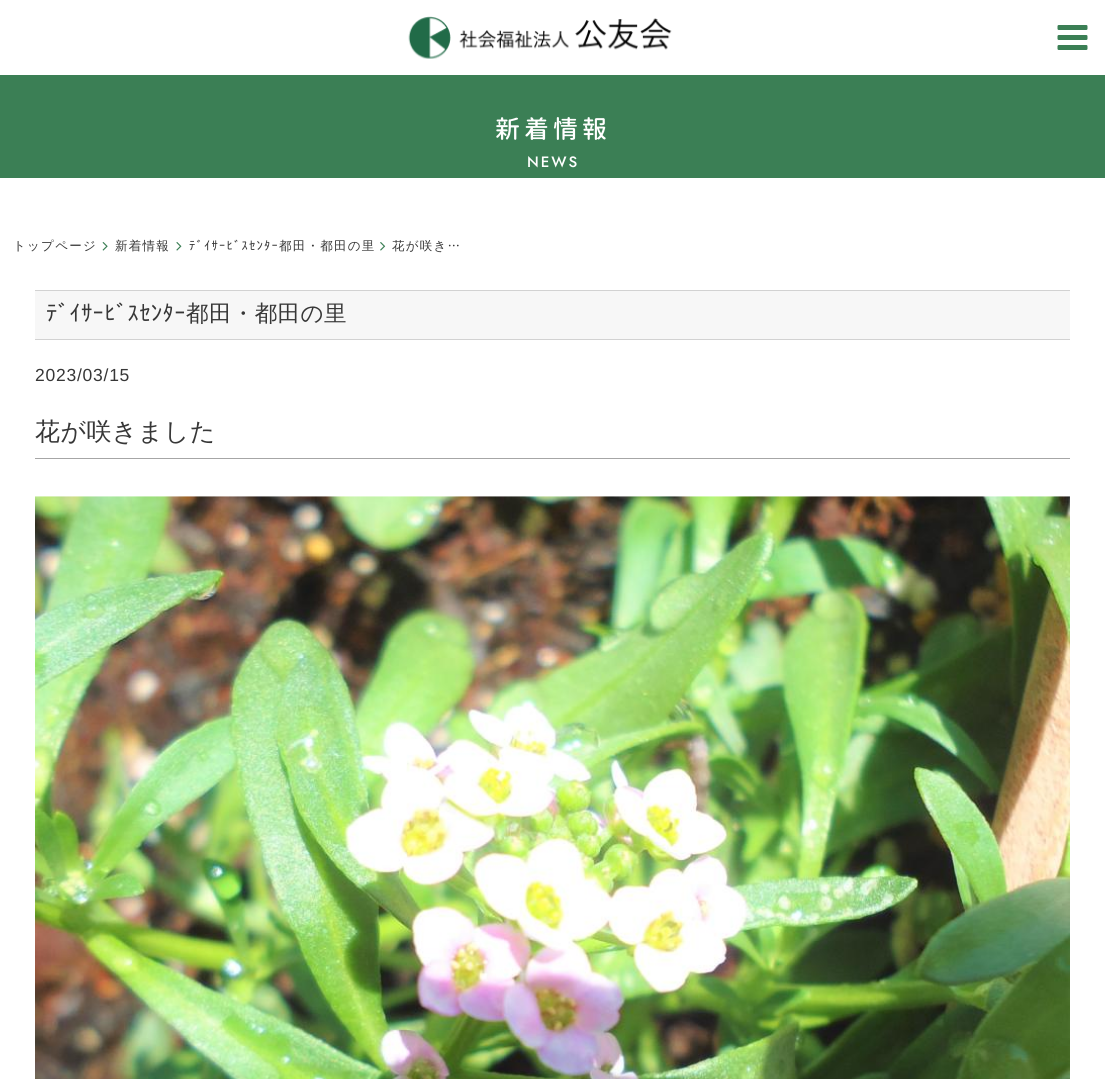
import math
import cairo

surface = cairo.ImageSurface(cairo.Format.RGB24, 1105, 1079)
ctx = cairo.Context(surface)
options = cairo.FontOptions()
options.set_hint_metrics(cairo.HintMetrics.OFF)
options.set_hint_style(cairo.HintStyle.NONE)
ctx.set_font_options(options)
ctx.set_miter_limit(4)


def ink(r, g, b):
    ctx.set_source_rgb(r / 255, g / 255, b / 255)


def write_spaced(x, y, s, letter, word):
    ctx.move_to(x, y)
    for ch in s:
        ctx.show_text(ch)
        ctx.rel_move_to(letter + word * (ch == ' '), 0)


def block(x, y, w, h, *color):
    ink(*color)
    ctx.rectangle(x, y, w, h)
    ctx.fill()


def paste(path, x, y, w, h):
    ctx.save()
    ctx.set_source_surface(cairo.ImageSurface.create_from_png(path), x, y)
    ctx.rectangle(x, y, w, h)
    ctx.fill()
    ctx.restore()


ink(255, 255, 255)
ctx.paint()
paste("pic1.png", 408, 16, 264, 43)
paste("pic2.png", 1057, 25, 31, 25)
block(0, 75, 1105, 103, 59, 127, 85)
ctx.select_font_face("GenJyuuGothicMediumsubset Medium")
ctx.set_font_size(25)
ink(255, 255, 255)
write_spaced(495, 138, "新着情報", 4, 0)
ctx.select_font_face("Jost Medium")
ctx.set_font_size(15)
write_spaced(527, 167, "NEWS", 2, 0)
ctx.select_font_face("WenQuanYi Zen Hei Medium")
ctx.set_font_size(12.5)
ink(55, 55, 55)
write_spaced(13, 250, "トップページ", 1.25, 0)
paste("pic3.png", 102, 242, 6, 9)
write_spaced(115, 250, "新着情報", 1.25, 0)
paste("pic4.png", 176, 242, 6, 9)
ctx.select_font_face("IPAPGothic")
write_spaced(189, 250, "ﾃﾞｲｻｰﾋﾞｽｾﾝﾀｰ", 1.25, 0)
ctx.select_font_face("WenQuanYi Zen Hei Medium")
write_spaced(279, 250, "都田・都田の里", 1.25, 0)
paste("pic5.png", 380, 242, 6, 9)
ctx.save()
ctx.rectangle(388, 240, 75, 13)
ctx.clip()
write_spaced(392, 250, "花が咲き…", 1.25, 0)
ctx.restore()
block(35, 291, 1035, 48, 247, 247, 247)
block(35, 290, 1035, 1, 210, 210, 210)
block(35, 339, 1035, 1, 210, 210, 210)
ctx.select_font_face("IPAPGothic")
ctx.set_font_size(22.5)
ink(55, 55, 55)
write_spaced(46, 321, "ﾃﾞｲｻｰﾋﾞｽｾﾝﾀｰ", 0.4, 0)
ctx.select_font_face("WenQuanYi Zen Hei Medium")
write_spaced(186, 321, "都田・都田の里", 0.4, 0)
ctx.select_font_face("Liberation Sans")
ctx.set_font_size(17.5)
write_spaced(35, 381, "2023/03/15", 0.75, 0)
block(35, 458, 1035, 1, 166, 166, 166)
ctx.select_font_face("WenQuanYi Zen Hei Medium")
ctx.set_font_size(25)
ink(55, 55, 55)
write_spaced(35, 440, "花が咲きました", 0.4, 0)
paste("pic6.png", 35, 496, 1035, 583)
surface.write_to_png("screenshot.png")
